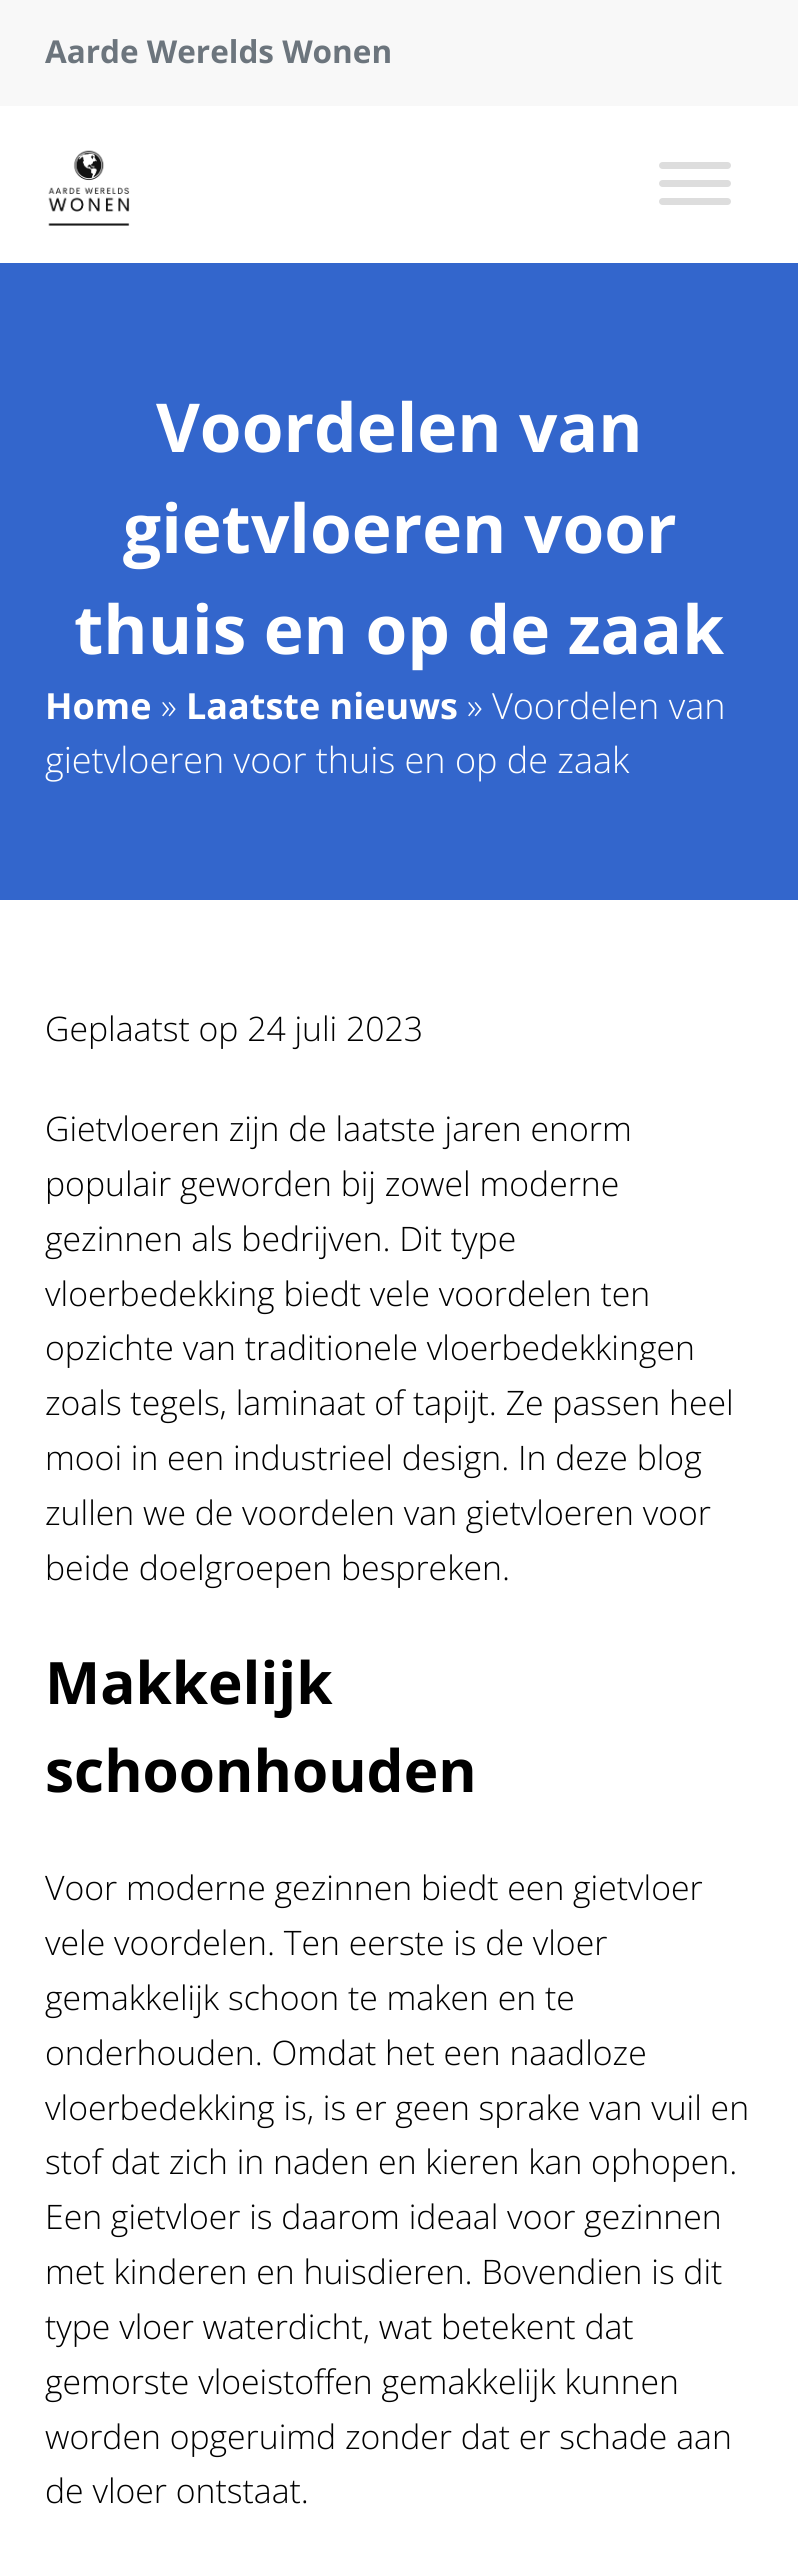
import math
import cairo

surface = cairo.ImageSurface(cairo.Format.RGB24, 798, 2550)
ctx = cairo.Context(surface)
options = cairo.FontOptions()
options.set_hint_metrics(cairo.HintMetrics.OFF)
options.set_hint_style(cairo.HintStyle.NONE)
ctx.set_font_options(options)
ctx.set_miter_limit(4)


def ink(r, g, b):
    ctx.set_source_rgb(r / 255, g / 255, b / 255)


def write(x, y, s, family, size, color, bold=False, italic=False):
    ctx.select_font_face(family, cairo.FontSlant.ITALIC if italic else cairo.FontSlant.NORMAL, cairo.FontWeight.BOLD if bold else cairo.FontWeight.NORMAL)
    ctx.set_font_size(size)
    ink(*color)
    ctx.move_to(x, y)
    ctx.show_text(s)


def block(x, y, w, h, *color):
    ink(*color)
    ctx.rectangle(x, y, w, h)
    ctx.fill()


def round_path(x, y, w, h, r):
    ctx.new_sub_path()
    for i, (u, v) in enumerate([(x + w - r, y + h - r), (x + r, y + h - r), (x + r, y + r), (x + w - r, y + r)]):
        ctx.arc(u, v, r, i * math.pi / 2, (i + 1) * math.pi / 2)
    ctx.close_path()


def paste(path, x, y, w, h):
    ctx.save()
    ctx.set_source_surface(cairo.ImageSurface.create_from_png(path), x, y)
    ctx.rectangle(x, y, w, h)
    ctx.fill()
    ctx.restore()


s1 = dict(family="Open Sans", size=31.5, color=(108, 117, 125), bold=True)
s2 = dict(family="Open Sans", size=67.5, color=(255, 255, 255), bold=True)
s3 = dict(family="Open Sans", size=36, color=(255, 255, 255), bold=True)
s4 = dict(family="Open Sans Light", size=36, color=(255, 255, 255))
s5 = dict(family="Open Sans Light", size=33.75, color=(0, 0, 0))
s6 = dict(family="Open Sans", size=58.5, color=(0, 0, 0), bold=True)

ink(255, 255, 255)
ctx.paint()
block(0, 0, 798, 106, 248, 248, 248)
write(45, 63, "Aarde Werelds Wonen", **s1)
paste("pic1.png", 48, 150, 82, 76)
ink(221, 221, 221)
round_path(659, 162, 72, 7, 3.5)
ctx.fill()
round_path(659, 180, 72, 7, 3.5)
ctx.fill()
round_path(659, 198, 72, 7, 3.5)
ctx.fill()
block(0, 263, 798, 637, 51, 102, 204)
write(156, 452, "Voordelen van", **s2)
write(123, 553, "gietvloeren voor", **s2)
write(74, 654, "thuis en op de zaak", **s2)
write(45, 719, "Home", **s3)
write(161, 719, "»", **s4)
write(186, 719, "Laatste nieuws", **s3)
write(467, 719, "» Voordelen van", **s4)
write(45, 773, "gietvloeren voor thuis en op de zaak", **s4)
write(45, 1041, "Geplaatst op 24 juli 2023", **s5)
write(45, 1141, "Gietvloeren zijn de laatste jaren enorm", **s5)
write(45, 1196, "populair geworden bij zowel moderne", **s5)
write(45, 1251, "gezinnen als bedrijven. Dit type", **s5)
write(45, 1306, "vloerbedekking biedt vele voordelen ten", **s5)
write(45, 1360, "opzichte van traditionele vloerbedekkingen", **s5)
write(45, 1415, "zoals tegels, laminaat of tapijt. Ze passen heel", **s5)
write(45, 1470, "mooi in een industrieel design. In deze blog", **s5)
write(45, 1525, "zullen we de voordelen van gietvloeren voor", **s5)
write(45, 1580, "beide doelgroepen bespreken.", **s5)
write(45, 1704, "Makkelijk", **s6)
write(45, 1792, "schoonhouden", **s6)
write(45, 1900, "Voor moderne gezinnen biedt een gietvloer", **s5)
write(45, 1955, "vele voordelen. Ten eerste is de vloer", **s5)
write(45, 2010, "gemakkelijk schoon te maken en te", **s5)
write(45, 2065, "onderhouden. Omdat het een naadloze", **s5)
write(45, 2120, "vloerbedekking is, is er geen sprake van vuil en", **s5)
write(45, 2174, "stof dat zich in naden en kieren kan ophopen.", **s5)
write(45, 2229, "Een gietvloer is daarom ideaal voor gezinnen", **s5)
write(45, 2284, "met kinderen en huisdieren. Bovendien is dit", **s5)
write(45, 2339, "type vloer waterdicht, wat betekent dat", **s5)
write(45, 2394, "gemorste vloeistoffen gemakkelijk kunnen", **s5)
write(45, 2449, "worden opgeruimd zonder dat er schade aan", **s5)
write(45, 2503, "de vloer ontstaat.", **s5)
surface.write_to_png("screenshot.png")
